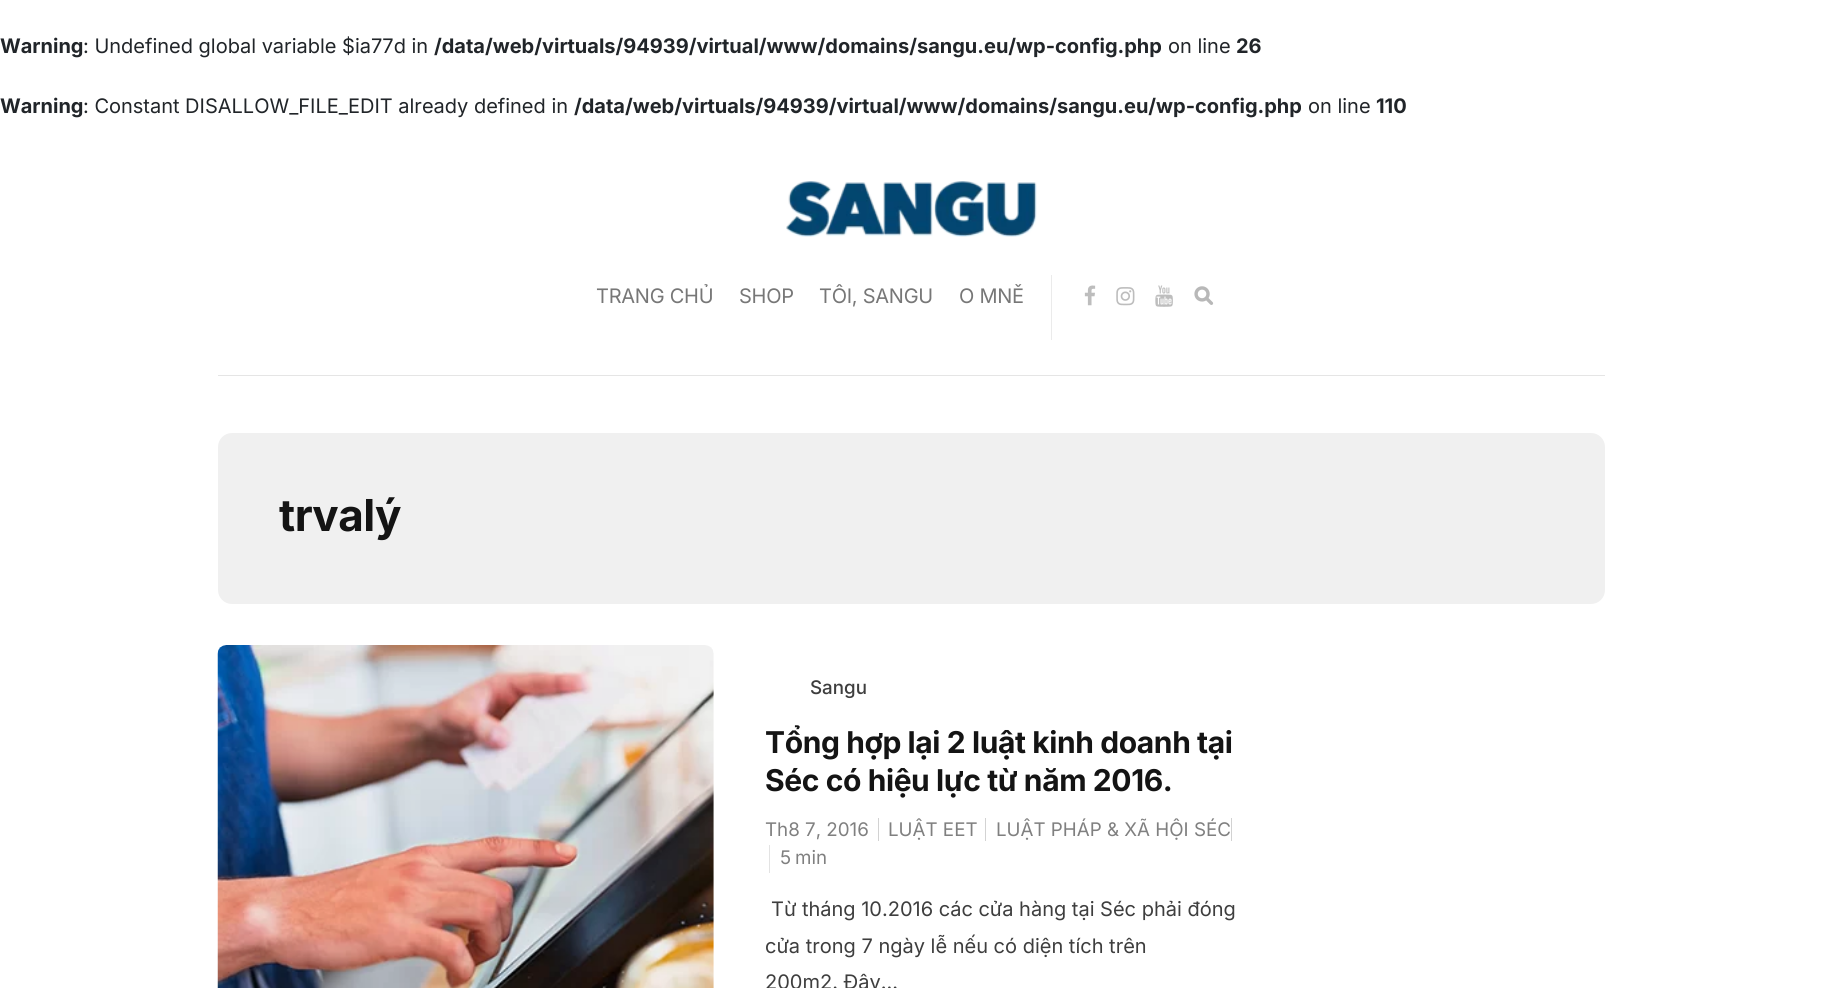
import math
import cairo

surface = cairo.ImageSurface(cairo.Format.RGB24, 1821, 988)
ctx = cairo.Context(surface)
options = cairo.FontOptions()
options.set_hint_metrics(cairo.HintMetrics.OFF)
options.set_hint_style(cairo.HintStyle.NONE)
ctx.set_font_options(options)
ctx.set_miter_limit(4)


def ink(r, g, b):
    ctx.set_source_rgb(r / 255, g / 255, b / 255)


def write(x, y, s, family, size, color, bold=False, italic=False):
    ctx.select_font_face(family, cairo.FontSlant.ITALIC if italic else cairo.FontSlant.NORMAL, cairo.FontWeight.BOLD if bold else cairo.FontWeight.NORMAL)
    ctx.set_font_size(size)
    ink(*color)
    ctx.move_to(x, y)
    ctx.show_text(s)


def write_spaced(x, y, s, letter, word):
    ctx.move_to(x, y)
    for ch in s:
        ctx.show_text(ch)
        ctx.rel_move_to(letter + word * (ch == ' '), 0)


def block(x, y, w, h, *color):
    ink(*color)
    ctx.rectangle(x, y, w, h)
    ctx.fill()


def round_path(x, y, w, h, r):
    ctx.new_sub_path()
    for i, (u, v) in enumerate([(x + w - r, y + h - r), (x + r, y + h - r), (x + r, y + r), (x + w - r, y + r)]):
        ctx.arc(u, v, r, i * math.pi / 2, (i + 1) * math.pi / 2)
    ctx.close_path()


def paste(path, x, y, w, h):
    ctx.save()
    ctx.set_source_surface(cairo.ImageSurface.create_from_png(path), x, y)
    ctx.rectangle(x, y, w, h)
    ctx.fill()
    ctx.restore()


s1 = dict(family="Inter", size=20, color=(33, 37, 41), bold=True)
s2 = dict(family="Inter", size=20, color=(33, 37, 41))
s3 = dict(family="Inter Medium", size=18.75, color=(62, 62, 62))
s4 = dict(family="Inter", size=18.75, color=(128, 128, 128))
s5 = dict(family="Inter", size=20, color=(62, 62, 62))

ink(255, 255, 255)
ctx.paint()
write(0, 53, "Warning", **s1)
write(83, 53, ": Undefined global variable $ia77d in", **s2)
write(434, 53, "/data/web/virtuals/94939/virtual/www/domains/sangu.eu/wp-config.php", **s1)
write(1168, 53, "on line", **s2)
write(1236, 53, "26", **s1)
write(0, 113, "Warning", **s1)
write(83, 113, ": Constant DISALLOW_FILE_EDIT already defined in", **s2)
write(574, 113, "/data/web/virtuals/94939/virtual/www/domains/sangu.eu/wp-config.php", **s1)
write(1308, 113, "on line", **s2)
write(1376, 113, "110", **s1)
block(218, 375, 1387, 1, 229, 229, 229)
paste("pic1.png", 786, 181, 251, 56)
ctx.select_font_face("Inter")
ink(119, 119, 119)
write_spaced(596, 303, "TRANG CHỦ", -0.25, 0)
write_spaced(739, 303, "SHOP", -0.25, 0)
write_spaced(819, 303, "TÔI, SANGU", -0.25, 0)
write_spaced(959, 303, "O MNĚ", -0.25, 0)
block(1051, 275, 1, 65, 235, 235, 235)
paste("pic2.png", 1084, 285, 12, 21)
paste("pic3.png", 1116, 287, 19, 19)
paste("pic4.png", 1155, 285, 18, 22)
paste("pic5.png", 1194, 286, 20, 19)
ink(240, 240, 240)
round_path(218, 433, 1387, 171, 14)
ctx.fill()
ctx.select_font_face("Inter", cairo.FontSlant.NORMAL, cairo.FontWeight.BOLD)
ctx.set_font_size(44)
ink(20, 20, 20)
write_spaced(279, 531, "trvalý", -0.4, 0)
paste("pic6.png", 217, 645, 497, 343)
write(810, 694, "Sangu", **s3)
ctx.select_font_face("Inter", cairo.FontSlant.NORMAL, cairo.FontWeight.BOLD)
ctx.set_font_size(30)
ink(20, 20, 20)
write_spaced(765, 753, "Tổng hợp lại 2 luật kinh doanh tại", -0.4, 0)
write_spaced(765, 791, "Séc có hiệu lực từ năm 2016.", -0.4, 0)
write(765, 836, "Th8 7, 2016", **s4)
block(878, 818, 1, 23, 210, 210, 210)
write(888, 836, "LUẬT EET", **s4)
block(985, 818, 1, 23, 211, 211, 211)
write(996, 836, "LUẬT PHÁP & XÃ HỘI SÉC", **s4)
block(1231, 818, 1, 23, 210, 210, 210)
block(769, 845, 1, 28, 227, 227, 227)
write(780, 864, "5", **s4)
write(795, 864, "min", **s4)
write(771, 916, "Từ tháng 10.2016 các cửa hàng tại Séc phải đóng", **s5)
write(765, 953, "cửa trong 7 ngày lễ nếu có diện tích trên", **s5)
write(765, 989, "200m2. Đây...", **s5)
surface.write_to_png("screenshot.png")
